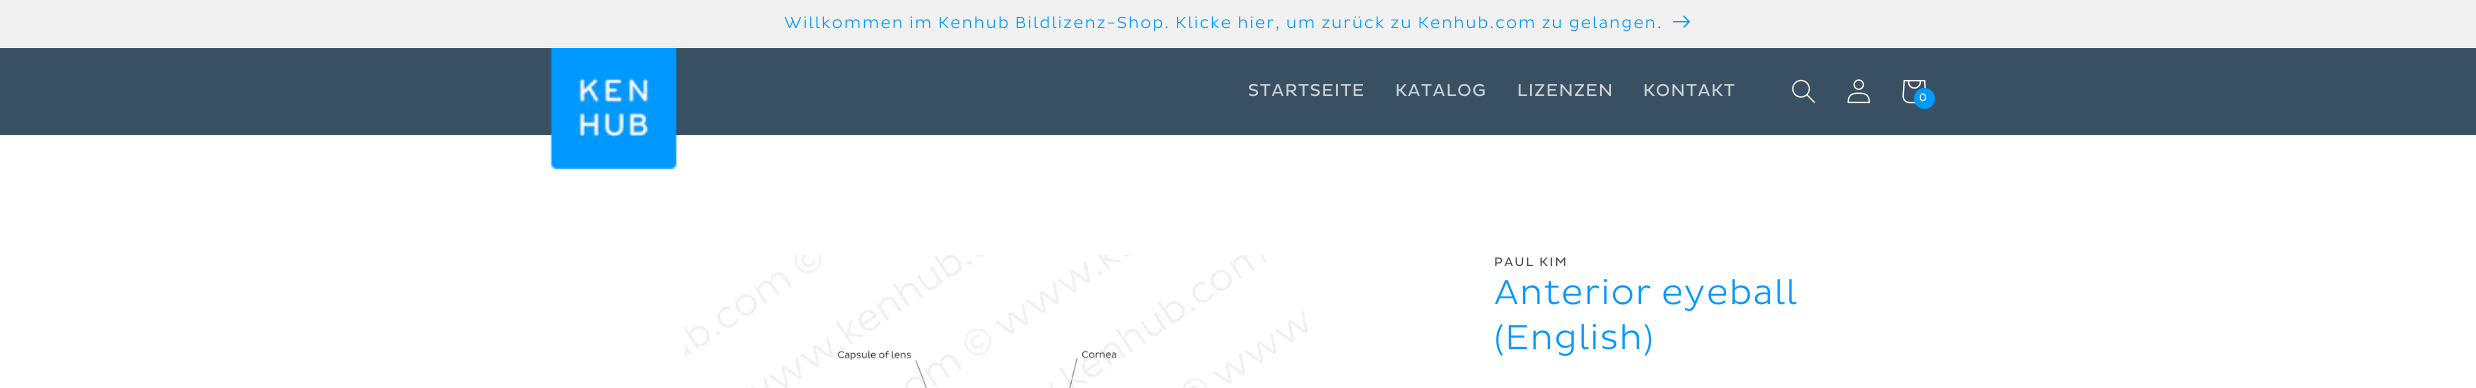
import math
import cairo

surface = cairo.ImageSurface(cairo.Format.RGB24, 2476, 388)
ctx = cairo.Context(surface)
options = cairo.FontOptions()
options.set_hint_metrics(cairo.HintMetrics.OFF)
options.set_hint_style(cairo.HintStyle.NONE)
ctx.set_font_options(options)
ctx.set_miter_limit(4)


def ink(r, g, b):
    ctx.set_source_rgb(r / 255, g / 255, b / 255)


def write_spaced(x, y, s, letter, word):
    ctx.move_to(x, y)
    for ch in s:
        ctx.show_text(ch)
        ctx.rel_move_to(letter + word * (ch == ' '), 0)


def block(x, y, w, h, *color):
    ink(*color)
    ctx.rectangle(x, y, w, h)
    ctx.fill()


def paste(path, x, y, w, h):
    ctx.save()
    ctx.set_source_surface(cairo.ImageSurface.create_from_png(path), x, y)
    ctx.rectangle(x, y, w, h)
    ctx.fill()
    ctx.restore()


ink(255, 255, 255)
ctx.paint()
block(0, 46, 2476, 1, 236, 236, 236)
block(0, 0, 2476, 46, 241, 241, 241)
ctx.select_font_face("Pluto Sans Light")
ctx.set_font_size(16.25)
ink(0, 153, 255)
write_spaced(784, 28, "Willkommen im Kenhub Bildlizenz-Shop. Klicke hier, um zurück zu Kenhub.com zu gelangen.", 1.25, 0)
paste("pic1.png", 1673, 15, 17, 13)
block(0, 48, 2476, 87, 57, 80, 98)
paste("pic2.png", 550, 48, 127, 121)
ctx.select_font_face("Pluto Sans")
ctx.set_font_size(17.5)
ink(206, 211, 216)
write_spaced(1248, 96, "STARTSEITE", 0.75, 0)
write_spaced(1395, 96, "KATALOG", 0.75, 0)
write_spaced(1517, 96, "LIZENZEN", 0.75, 0)
write_spaced(1643, 96, "KONTAKT", 0.75, 0)
paste("pic3.png", 1792, 79, 23, 24)
paste("pic4.png", 1847, 79, 23, 25)
paste("pic5.png", 1902, 80, 24, 24)
ink(0, 153, 255)
ctx.arc(1924.5, 98.5, 10.5, 0, 2 * math.pi)
ctx.fill()
ctx.set_font_size(11)
ink(255, 255, 255)
write_spaced(1919, 101, "0", 0.75, 0)
paste("pic6.png", 685, 255, 623, 133)
ctx.set_font_size(12.5)
ink(77, 77, 77)
write_spaced(1494, 266, "PAUL KIM", 1.5, 0)
ctx.select_font_face("Pluto Sans Light")
ctx.set_font_size(35)
ink(0, 153, 255)
write_spaced(1494, 304, "Anterior eyeball", 0.75, 0)
write_spaced(1494, 349, "(English)", 0.75, 0)
surface.write_to_png("screenshot.png")
